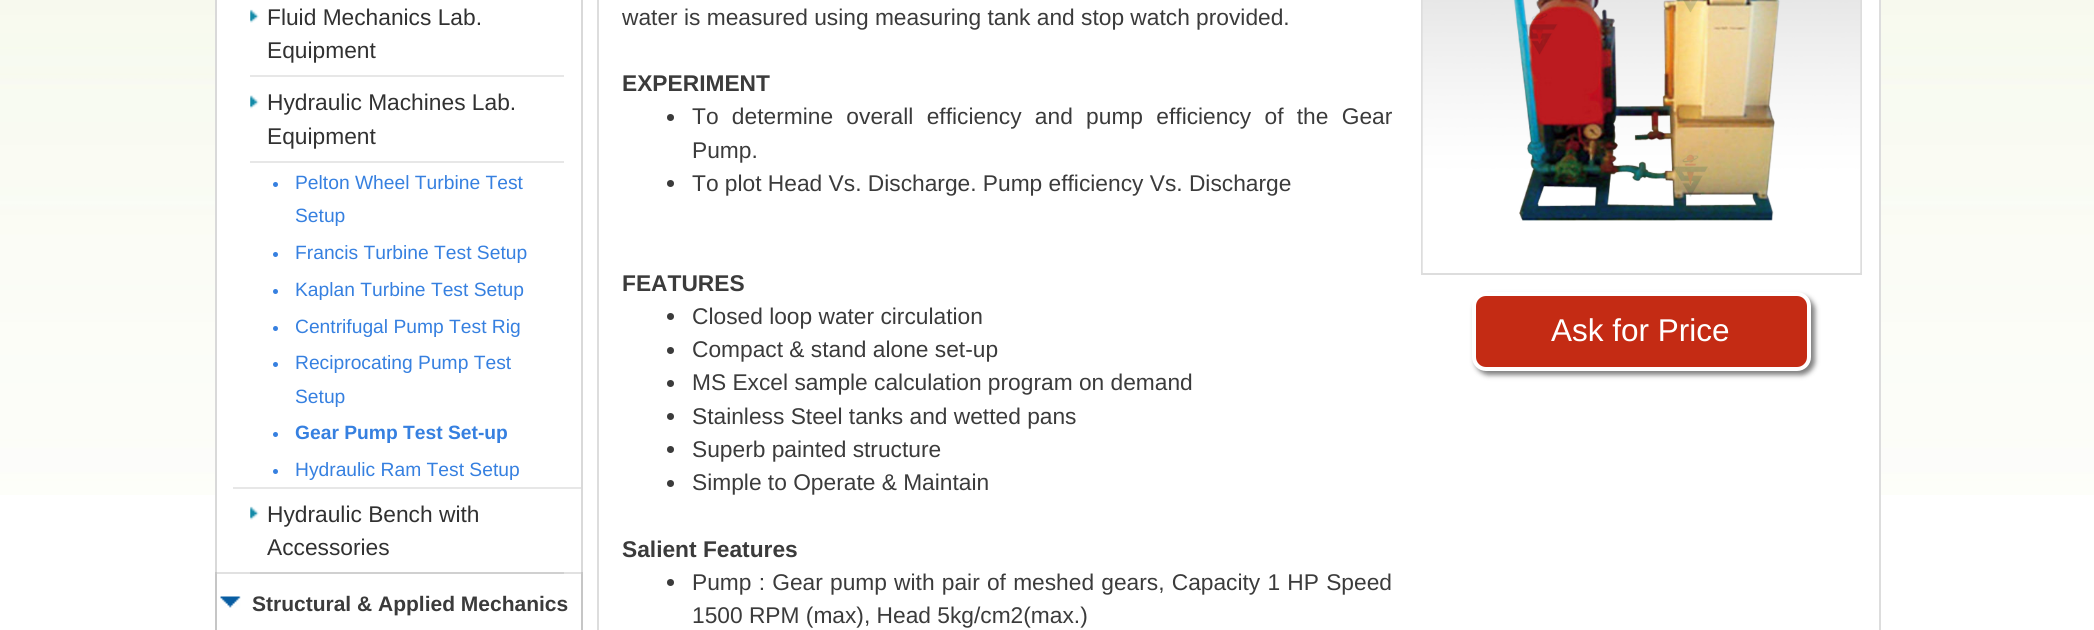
import math
import cairo

surface = cairo.ImageSurface(cairo.Format.RGB24, 2094, 630)
ctx = cairo.Context(surface)
options = cairo.FontOptions()
options.set_hint_metrics(cairo.HintMetrics.OFF)
options.set_hint_style(cairo.HintStyle.NONE)
ctx.set_font_options(options)
ctx.set_miter_limit(4)


def ink(r, g, b):
    ctx.set_source_rgb(r / 255, g / 255, b / 255)


def write(x, y, s, family, size, color, bold=False, italic=False):
    ctx.select_font_face(family, cairo.FontSlant.ITALIC if italic else cairo.FontSlant.NORMAL, cairo.FontWeight.BOLD if bold else cairo.FontWeight.NORMAL)
    ctx.set_font_size(size)
    ink(*color)
    ctx.move_to(x, y)
    ctx.show_text(s)


def write_spaced(x, y, s, letter, word):
    ctx.move_to(x, y)
    for ch in s:
        ctx.show_text(ch)
        ctx.rel_move_to(letter + word * (ch == ' '), 0)


def block(x, y, w, h, *color):
    ink(*color)
    ctx.rectangle(x, y, w, h)
    ctx.fill()


def round_path(x, y, w, h, r):
    ctx.new_sub_path()
    for i, (u, v) in enumerate([(x + w - r, y + h - r), (x + r, y + h - r), (x + r, y + r), (x + w - r, y + r)]):
        ctx.arc(u, v, r, i * math.pi / 2, (i + 1) * math.pi / 2)
    ctx.close_path()


def blur_box(x, y, w, h, r, blur, alpha):
    ctx.push_group_with_content(cairo.Content.ALPHA)
    ctx.set_operator(cairo.Operator.SOURCE)
    for i in range(15, -16, -2):
        e = blur * i / 6
        if min(w, h) + 2 * e > 0:
            ctx.set_source_rgba(0, 0, 0, alpha * math.erfc((i - 1) / 8.5) / 2)
            round_path(x - e, y - e, w + 2 * e, h + 2 * e, max(0, min(r + e + blur * .6, min(w, h) / 2 + e)))
            ctx.fill()
    ctx.mask(ctx.pop_group())


def paste(path, x, y, w, h):
    ctx.save()
    ctx.set_source_surface(cairo.ImageSurface.create_from_png(path), x, y)
    ctx.rectangle(x, y, w, h)
    ctx.fill()
    ctx.restore()


s1 = dict(family="Liberation Sans", size=22.75, color=(49, 49, 49))
s2 = dict(family="Liberation Sans", size=19.25, color=(54, 128, 224))
s3 = dict(family="Liberation Sans", size=19.25, color=(54, 128, 224), bold=True)
s4 = dict(family="Liberation Sans", size=21, color=(59, 59, 59), bold=True)
s5 = dict(family="Liberation Sans", size=22.75, color=(59, 59, 59))
s6 = dict(family="Liberation Sans", size=22.75, color=(59, 59, 59), bold=True)
s7 = dict(family="Liberation Sans", size=31.5, color=(255, 255, 255))

ink(255, 255, 255)
ctx.paint()
paste("pic1.png", 0, 0, 2094, 495)
block(217, 0, 1662, 495, 255, 255, 255)
ctx.rectangle(216, -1, 366, 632)
ink(217, 217, 217)
ctx.stroke()
paste("pic2.png", 250, 9, 9, 14)
block(250, 75, 314, 2, 231, 231, 231)
write(267, 25, "Fluid Mechanics Lab.", **s1)
write(267, 58, "Equipment", **s1)
paste("pic3.png", 250, 95, 9, 14)
block(250, 161, 314, 2, 231, 231, 231)
write(267, 110, "Hydraulic Machines Lab.", **s1)
write(267, 144, "Equipment", **s1)
block(233, 487, 348, 2, 231, 231, 231)
ink(54, 128, 224)
ctx.new_path()
ctx.arc(275.5, 184.5, 2.5, 0, 2 * math.pi)
ctx.fill()
write(295, 189, "Pelton Wheel Turbine Test", **s2)
write(295, 222, "Setup", **s2)
ctx.new_path()
ctx.arc(275.5, 254.5, 2.5, 0, 2 * math.pi)
ctx.fill()
write(295, 259, "Francis Turbine Test Setup", **s2)
ctx.new_path()
ctx.arc(275.5, 291.5, 2.5, 0, 2 * math.pi)
ctx.fill()
write(295, 296, "Kaplan Turbine Test Setup", **s2)
ctx.new_path()
ctx.arc(275.5, 328.5, 2.5, 0, 2 * math.pi)
ctx.fill()
write(295, 333, "Centrifugal Pump Test Rig", **s2)
ctx.new_path()
ctx.arc(275.5, 364.5, 2.5, 0, 2 * math.pi)
ctx.fill()
write(295, 369, "Reciprocating Pump Test", **s2)
write(295, 403, "Setup", **s2)
ctx.new_path()
ctx.arc(275.5, 434.5, 2.5, 0, 2 * math.pi)
ctx.fill()
write(295, 439, "Gear Pump Test Set-up", **s3)
ctx.new_path()
ctx.arc(275.5, 471.5, 2.5, 0, 2 * math.pi)
ctx.fill()
write(295, 476, "Hydraulic Ram Test Setup", **s2)
paste("pic2.png", 250, 506, 9, 14)
block(250, 572, 314, 2, 231, 231, 231)
write(267, 522, "Hydraulic Bench with", **s1)
write(267, 555, "Accessories", **s1)
ctx.rectangle(216, 573, 366, 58)
ctx.set_source_rgba(0.608, 0.608, 0.608, 0.3)
ctx.stroke()
paste("pic4.png", 220, 596, 21, 12)
write(252, 611, "Structural & Applied Mechanics", **s4)
ctx.rectangle(598, -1, 1282, 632)
ink(221, 221, 221)
ctx.stroke()
write(622, 25, "water is measured using measuring tank and stop watch provided.", **s5)
write(622, 91, "EXPERIMENT", **s6)
ctx.new_path()
ctx.arc(670.5, 117.5, 3.5, 0, 2 * math.pi)
ctx.fill()
ctx.select_font_face("Liberation Sans")
write_spaced(692, 124, "To determine overall efficiency and pump efficiency of the Gear", 0, 7)
write(692, 158, "Pump.", **s5)
ctx.new_path()
ctx.arc(670.5, 183.5, 3.5, 0, 2 * math.pi)
ctx.fill()
write(692, 191, "To plot Head Vs. Discharge. Pump efficiency Vs. Discharge", **s5)
write(622, 291, "FEATURES", **s6)
ctx.new_path()
ctx.arc(670.5, 316.5, 3.5, 0, 2 * math.pi)
ctx.fill()
write(692, 324, "Closed loop water circulation", **s5)
ctx.new_path()
ctx.arc(670.5, 350.5, 3.5, 0, 2 * math.pi)
ctx.fill()
write(692, 357, "Compact & stand alone set-up", **s5)
ctx.new_path()
ctx.arc(670.5, 383.5, 3.5, 0, 2 * math.pi)
ctx.fill()
write(692, 390, "MS Excel sample calculation program on demand", **s5)
ctx.new_path()
ctx.arc(670.5, 416.5, 3.5, 0, 2 * math.pi)
ctx.fill()
write(692, 424, "Stainless Steel tanks and wetted pans", **s5)
ctx.new_path()
ctx.arc(670.5, 449.5, 3.5, 0, 2 * math.pi)
ctx.fill()
write(692, 457, "Superb painted structure", **s5)
ctx.new_path()
ctx.arc(670.5, 483.5, 3.5, 0, 2 * math.pi)
ctx.fill()
write(692, 490, "Simple to Operate & Maintain", **s5)
write(622, 557, "Salient Features", **s6)
ctx.new_path()
ctx.arc(670.5, 582.5, 3.5, 0, 2 * math.pi)
ctx.fill()
ctx.select_font_face("Liberation Sans")
write_spaced(692, 590, "Pump : Gear pump with pair of meshed gears, Capacity 1 HP Speed", 0, 0.9)
write(692, 623, "1500 RPM (max), Head 5kg/cm2(max.)", **s5)
ctx.rectangle(1422, -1, 439, 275)
ink(221, 221, 221)
ctx.stroke()
paste("pic5.png", 1422, 0, 439, 273)
ink(127, 127, 127)
blur_box(1475, 296, 340, 79, 14, 2.5, 1)
ink(196, 43, 20)
round_path(1474, 294, 335, 75, 12)
ctx.fill_preserve()
ink(255, 255, 255)
ctx.set_line_width(4)
ctx.stroke()
write(1551, 341, "Ask for Price", **s7)
surface.write_to_png("screenshot.png")
